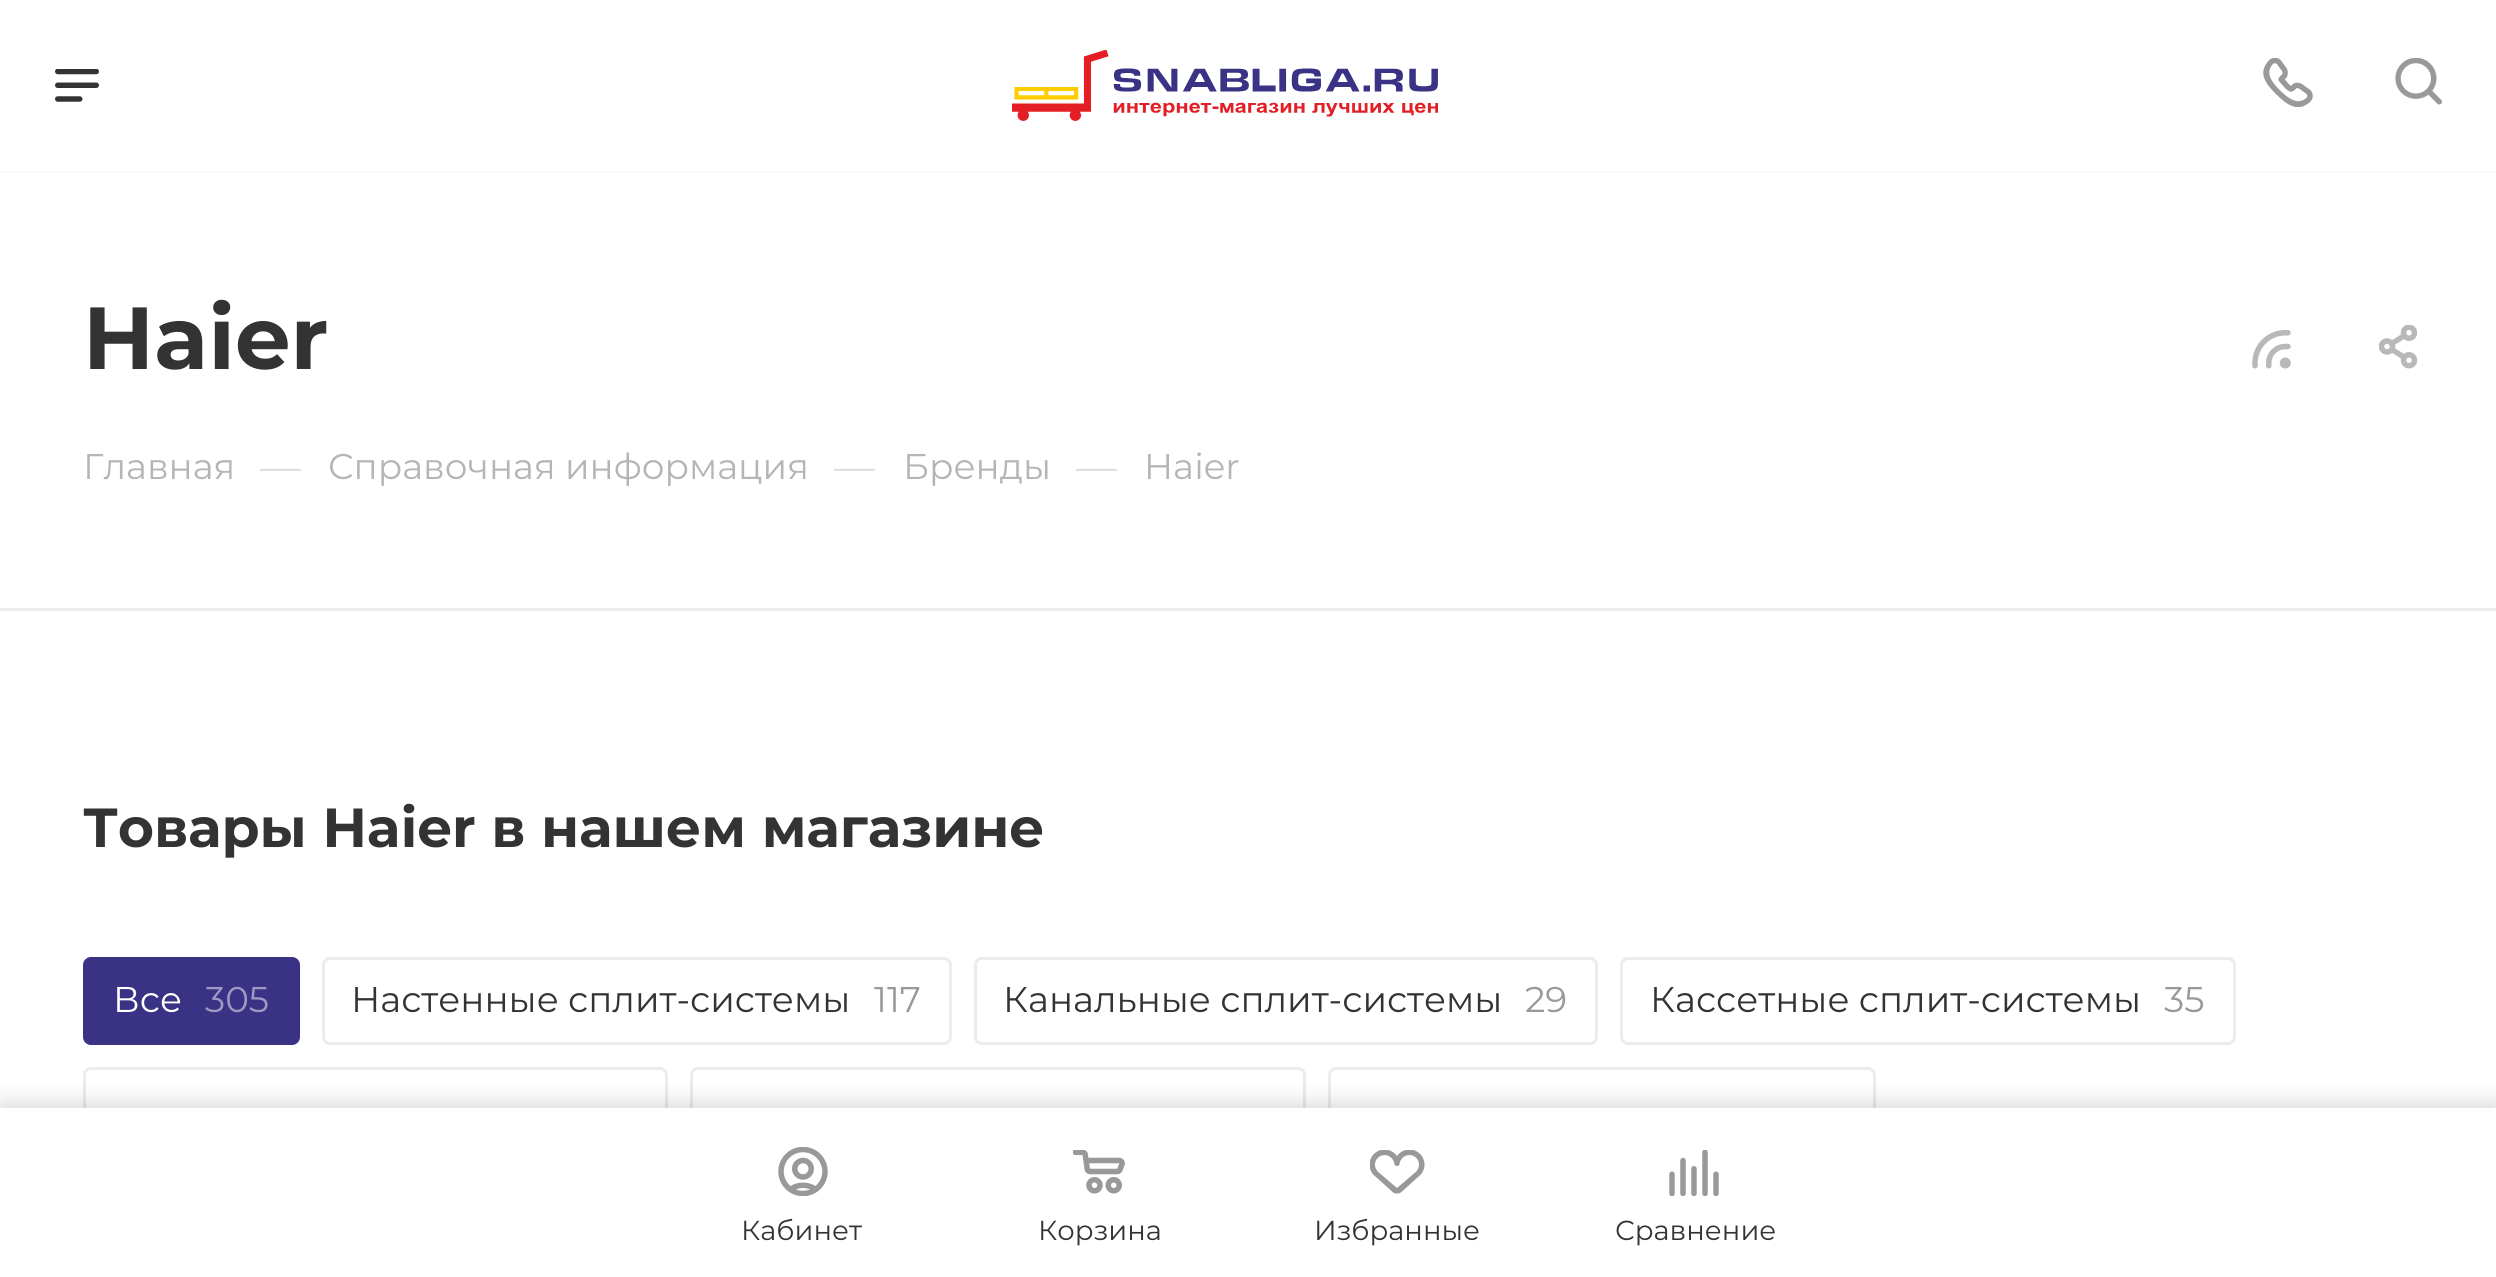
import math
import cairo

surface = cairo.ImageSurface(cairo.Format.RGB24, 2496, 1277)
ctx = cairo.Context(surface)
options = cairo.FontOptions()
options.set_hint_metrics(cairo.HintMetrics.OFF)
options.set_hint_style(cairo.HintStyle.NONE)
ctx.set_font_options(options)
ctx.set_miter_limit(4)


def ink(r, g, b):
    ctx.set_source_rgb(r / 255, g / 255, b / 255)


def write(x, y, s, family, size, color, bold=False, italic=False):
    ctx.select_font_face(family, cairo.FontSlant.ITALIC if italic else cairo.FontSlant.NORMAL, cairo.FontWeight.BOLD if bold else cairo.FontWeight.NORMAL)
    ctx.set_font_size(size)
    ink(*color)
    ctx.move_to(x, y)
    ctx.show_text(s)


def block(x, y, w, h, *color):
    ink(*color)
    ctx.rectangle(x, y, w, h)
    ctx.fill()


def round_path(x, y, w, h, r):
    ctx.new_sub_path()
    for i, (u, v) in enumerate([(x + w - r, y + h - r), (x + r, y + h - r), (x + r, y + r), (x + w - r, y + r)]):
        ctx.arc(u, v, r, i * math.pi / 2, (i + 1) * math.pi / 2)
    ctx.close_path()


def blur_box(x, y, w, h, r, blur, alpha):
    ctx.push_group_with_content(cairo.Content.ALPHA)
    ctx.set_operator(cairo.Operator.SOURCE)
    for i in range(15, -16, -2):
        e = blur * i / 6
        if min(w, h) + 2 * e > 0:
            ctx.set_source_rgba(0, 0, 0, alpha * math.erfc((i - 1) / 8.5) / 2)
            round_path(x - e, y - e, w + 2 * e, h + 2 * e, max(0, min(r + e + blur * .6, min(w, h) / 2 + e)))
            ctx.fill()
    ctx.mask(ctx.pop_group())


def paste(path, x, y, w, h):
    ctx.save()
    ctx.set_source_surface(cairo.ImageSurface.create_from_png(path), x, y)
    ctx.rectangle(x, y, w, h)
    ctx.fill()
    ctx.restore()


s1 = dict(family="Montserrat", size=88, color=(51, 51, 51), bold=True)
s2 = dict(family="Montserrat", size=35.75, color=(182, 181, 181))
s3 = dict(family="Montserrat", size=41, color=(221, 221, 221))
s4 = dict(family="Montserrat", size=55, color=(51, 51, 51), bold=True)
s5 = dict(family="Montserrat", size=35.75, color=(255, 255, 255))
s6 = dict(family="Montserrat", size=35.75, color=(157, 153, 194))
s7 = dict(family="Montserrat", size=35.75, color=(51, 51, 51))
s8 = dict(family="Montserrat", size=35.75, color=(153, 153, 153))
s9 = dict(family="Montserrat", size=27.5, color=(51, 51, 51))

ink(255, 255, 255)
ctx.paint()
block(0, 171, 2496, 2, 248, 248, 248)
paste("pic1.png", 55, 69, 44, 33)
paste("pic2.png", 1012, 50, 426, 71)
paste("pic3.png", 2263, 58, 50, 49)
paste("pic4.png", 2395, 58, 47, 47)
write(83, 369, "Haier", **s1)
paste("pic5.png", 2252, 330, 39, 39)
paste("pic6.png", 2379, 325, 38, 44)
write(83, 479, "Главная", **s2)
write(260, 481, "—", **s3)
write(328, 479, "Справочная информация", **s2)
write(834, 481, "—", **s3)
write(903, 479, "Бренды", **s2)
write(1076, 481, "—", **s3)
write(1144, 479, "Haier", **s2)
block(0, 608, 2496, 3, 236, 236, 236)
write(83, 847, "Товары Haier в нашем магазине", **s4)
ink(58, 50, 133)
round_path(84.5, 958.5, 214, 85, 6.5)
ctx.fill_preserve()
ctx.set_line_width(3)
ctx.stroke()
write(113, 1012, "Все", **s5)
write(205, 1012, "305", **s6)
round_path(323.5, 958.5, 627, 85, 6.5)
ink(236, 236, 236)
ctx.stroke()
write(351, 1012, "Настенные сплит-системы", **s7)
write(874, 1012, "117", **s8)
round_path(975.5, 958.5, 621, 85, 6.5)
ink(236, 236, 236)
ctx.stroke()
write(1003, 1012, "Канальные сплит-системы", **s7)
write(1525, 1012, "29", **s8)
round_path(1621.5, 958.5, 613, 85, 6.5)
ink(236, 236, 236)
ctx.stroke()
write(1650, 1012, "Кассетные сплит-системы", **s7)
write(2164, 1012, "35", **s8)
round_path(84.5, 1068.5, 582, 85, 6.5)
ink(236, 236, 236)
ctx.stroke()
round_path(691.5, 1068.5, 613, 85, 6.5)
ctx.stroke()
round_path(1329.5, 1068.5, 545, 85, 6.5)
ctx.stroke()
ink(0, 0, 0)
blur_box(0, 1103, 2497, 170, 0, 11, 0.15)
block(0, 1108, 2496, 169, 255, 255, 255)
paste("pic7.png", 778, 1147, 50, 49)
write(741, 1240, "Кабинет", **s9)
paste("pic8.png", 1073, 1150, 52, 44)
write(1038, 1240, "Корзина", **s9)
paste("pic9.png", 1370, 1150, 55, 44)
write(1314, 1240, "Избранные", **s9)
paste("pic10.png", 1669, 1150, 50, 46)
write(1615, 1240, "Сравнение", **s9)
surface.write_to_png("screenshot.png")
